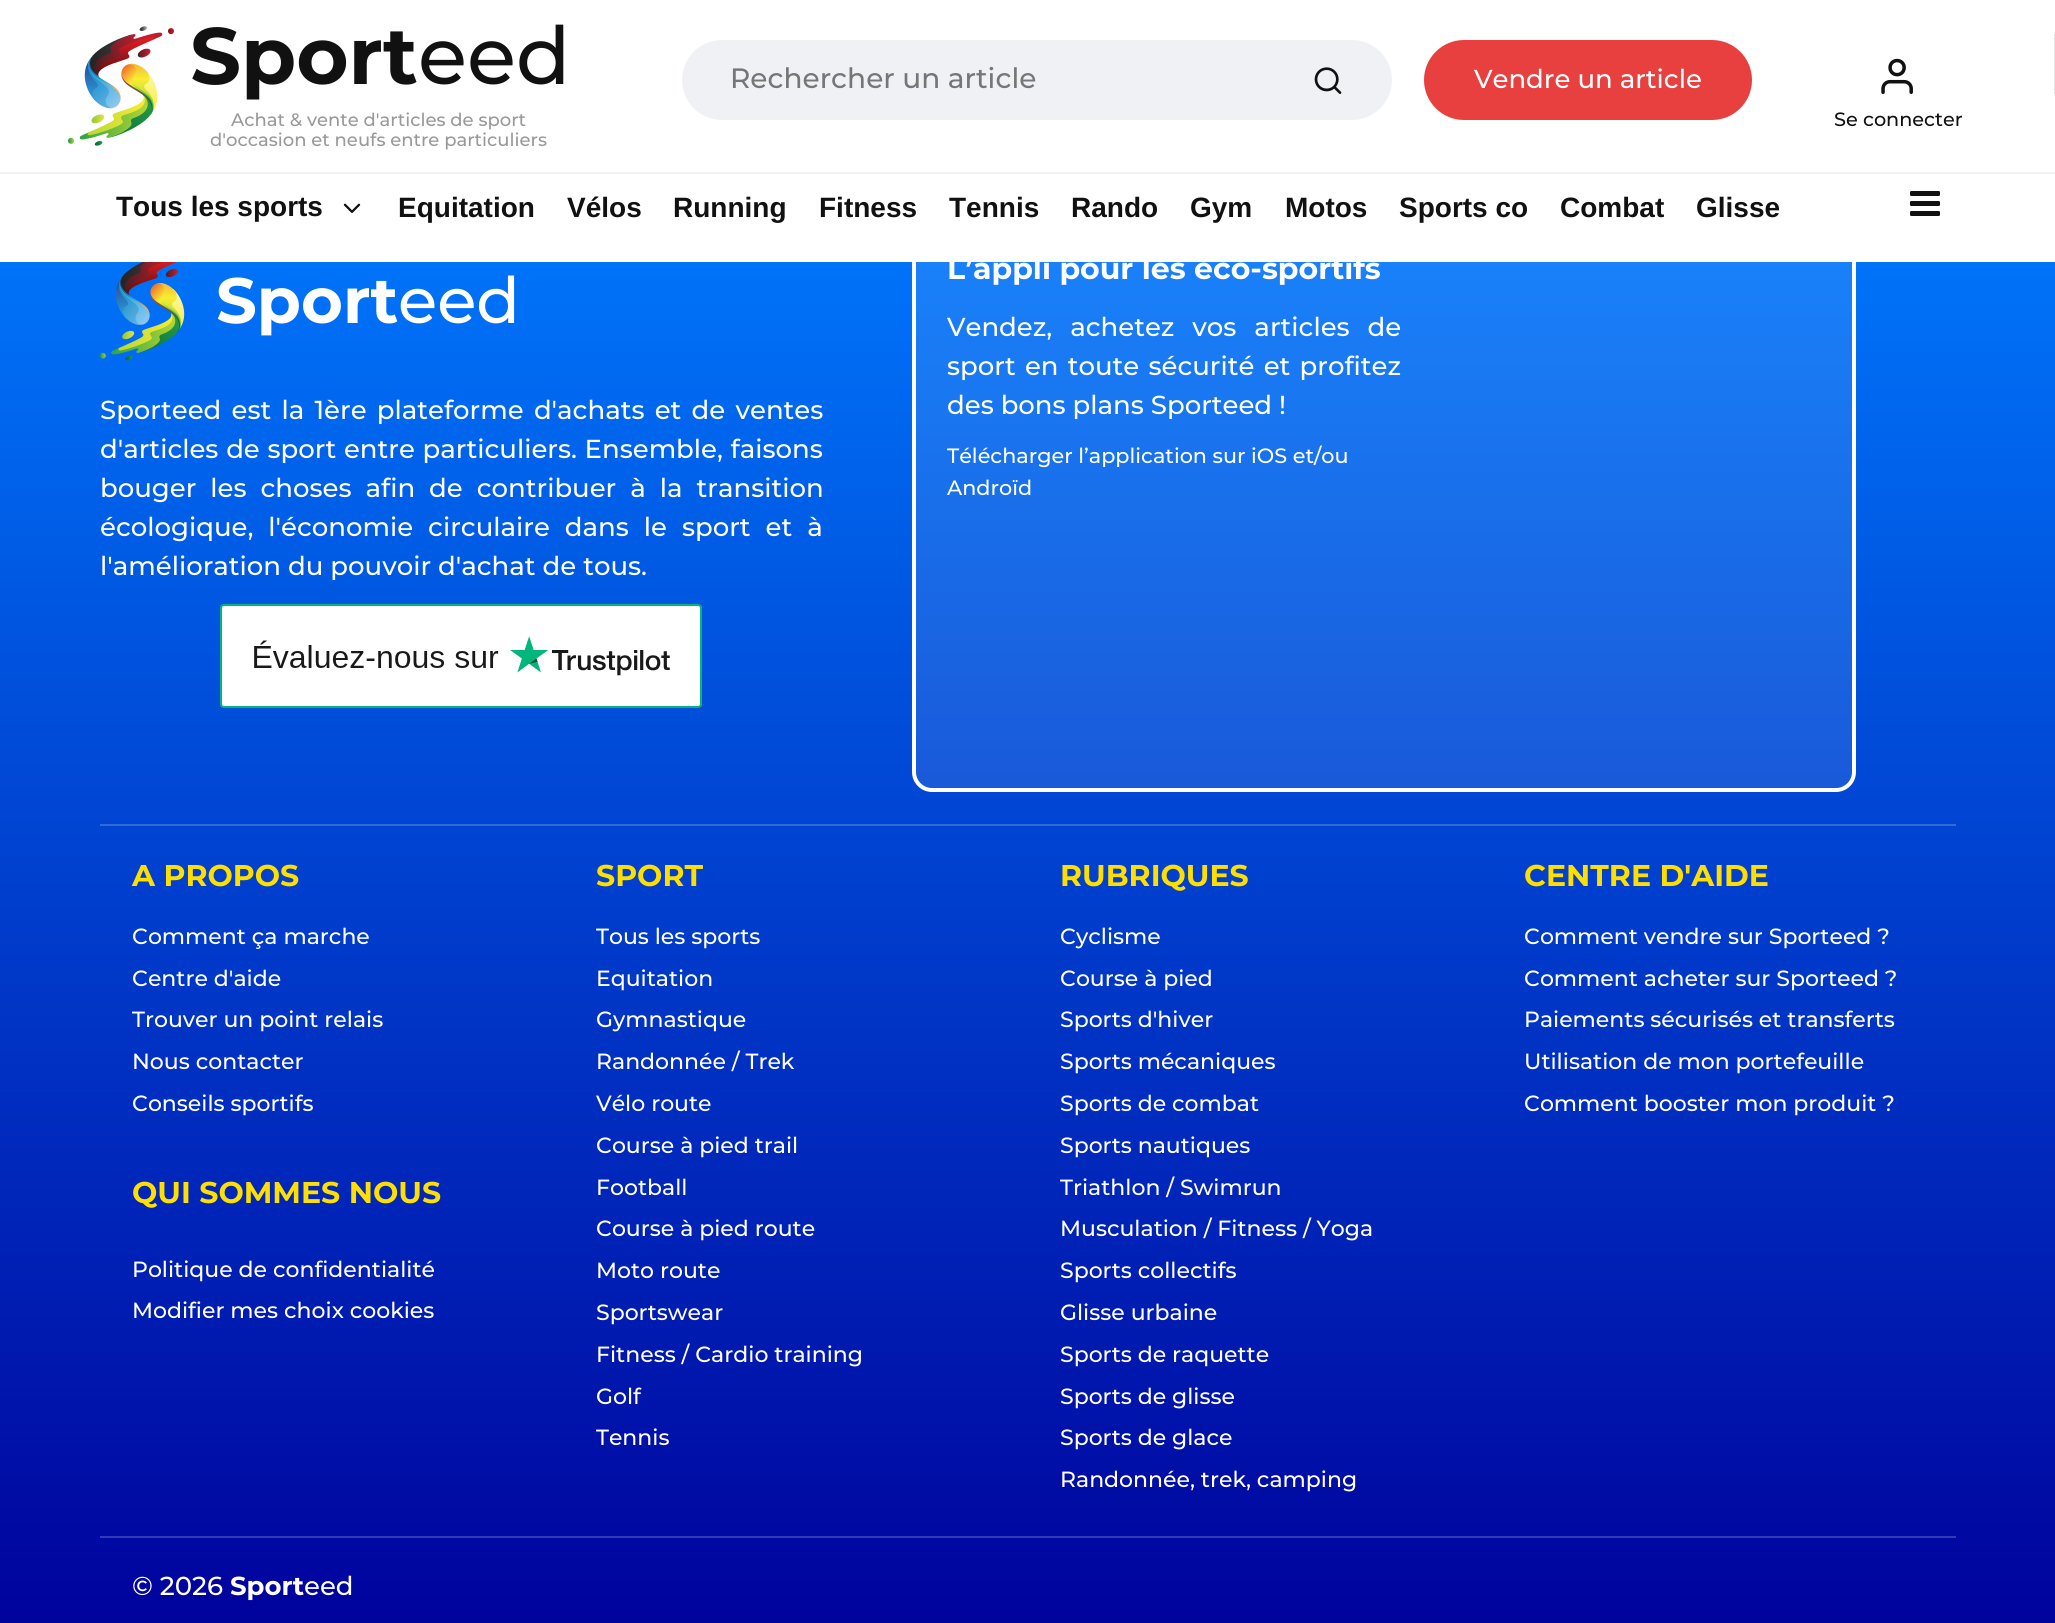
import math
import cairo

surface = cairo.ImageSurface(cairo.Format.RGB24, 2055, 1623)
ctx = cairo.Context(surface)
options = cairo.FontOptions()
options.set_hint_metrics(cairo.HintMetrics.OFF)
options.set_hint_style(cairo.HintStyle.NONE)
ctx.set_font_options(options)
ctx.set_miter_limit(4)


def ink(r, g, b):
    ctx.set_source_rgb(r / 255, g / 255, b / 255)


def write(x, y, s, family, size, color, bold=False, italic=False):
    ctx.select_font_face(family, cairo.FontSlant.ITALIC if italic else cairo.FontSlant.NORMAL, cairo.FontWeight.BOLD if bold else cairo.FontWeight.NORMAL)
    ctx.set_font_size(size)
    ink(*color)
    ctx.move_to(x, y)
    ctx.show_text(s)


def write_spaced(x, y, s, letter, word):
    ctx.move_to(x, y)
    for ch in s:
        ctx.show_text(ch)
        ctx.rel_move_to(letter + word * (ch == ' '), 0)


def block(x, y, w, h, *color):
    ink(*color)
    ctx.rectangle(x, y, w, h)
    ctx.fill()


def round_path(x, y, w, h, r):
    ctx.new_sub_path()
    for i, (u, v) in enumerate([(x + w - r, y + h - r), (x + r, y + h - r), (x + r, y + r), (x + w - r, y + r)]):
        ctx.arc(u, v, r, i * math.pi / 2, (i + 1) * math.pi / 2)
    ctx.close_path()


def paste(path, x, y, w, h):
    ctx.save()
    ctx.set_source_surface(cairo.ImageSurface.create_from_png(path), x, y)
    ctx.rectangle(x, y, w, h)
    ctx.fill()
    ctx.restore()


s1 = dict(family="Montserrat", size=80, color=(17, 17, 17), bold=True)
s2 = dict(family="Montserrat Medium", size=80, color=(17, 17, 17))
s3 = dict(family="Montserrat Medium", size=18, color=(153, 153, 153))
s4 = dict(family="Montserrat Medium", size=28, color=(118, 118, 118))
s5 = dict(family="Montserrat Medium", size=26, color=(255, 255, 255))
s6 = dict(family="Montserrat Medium", size=19.25, color=(17, 17, 17))
s7 = dict(family="Liberation Sans", size=28, color=(17, 17, 17), bold=True)
s8 = dict(family="Montserrat", size=64, color=(255, 255, 255), bold=True)
s9 = dict(family="Montserrat Medium", size=64, color=(255, 255, 255))
s10 = dict(family="Montserrat", size=30, color=(255, 255, 255), bold=True)
s11 = dict(family="Montserrat Medium", size=20.75, color=(255, 255, 255))
s12 = dict(family="Montserrat", size=30, color=(255, 222, 0), bold=True)
s13 = dict(family="Montserrat Medium", size=22, color=(255, 255, 255))
s14 = dict(family="Montserrat", size=26, color=(255, 255, 255), bold=True)

ink(255, 255, 255)
ctx.paint()
paste("pic1.png", 68, 26, 106, 120)
write(190, 84, "Sport", **s1)
write(418, 84, "eed", **s2)
write(231, 126, "Achat & vente d'articles de sport", **s3)
write(210, 146, "d'occasion et neufs entre particuliers", **s3)
ink(240, 241, 244)
ctx.new_path()
ctx.move_to(722, 40)
ctx.line_to(1266, 40)
ctx.line_to(1266, 120)
ctx.line_to(722, 120)
ctx.curve_to(700, 120, 682, 102, 682, 80)
ctx.curve_to(682, 58, 700, 40, 722, 40)
ctx.close_path()
ctx.fill()
write(730, 88, "Rechercher un article", **s4)
ink(240, 241, 244)
ctx.new_path()
ctx.move_to(1264, 40)
ctx.line_to(1352, 40)
ctx.curve_to(1374, 40, 1392, 58, 1392, 80)
ctx.curve_to(1392, 102, 1374, 120, 1352, 120)
ctx.line_to(1264, 120)
ctx.close_path()
ctx.fill()
paste("pic2.png", 1314, 67, 28, 27)
ink(232, 63, 63)
round_path(1424, 40, 328, 80, 40)
ctx.fill()
write(1474, 88, "Vendre un article", **s5)
block(2054, 34, 1, 60, 225, 226, 228)
paste("pic3.png", 1881, 58, 32, 36)
write(1834, 126, "Se connecter", **s6)
block(0, 172, 2055, 2, 240, 241, 244)
write(116, 216, "Tous les sports", **s7)
paste("pic4.png", 343, 203, 18, 10)
write(398, 217, "Equitation", **s7)
write(567, 217, "Vélos", **s7)
write(673, 217, "Running", **s7)
gradient = cairo.LinearGradient(1028, 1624, 1028, 166)
gradient.add_color_stop_rgba(0, 0, 0.008, 0.612, 1)
gradient.add_color_stop_rgba(1, 0, 0.482, 1, 1)
ctx.set_source(gradient)
ctx.rectangle(0, 262, 2055, 1361)
ctx.fill()
ctx.set_source_rgba(1, 1, 1, 0.1)
round_path(914, 216, 940, 574, 18)
ctx.fill_preserve()
ink(255, 255, 255)
ctx.set_line_width(4)
ctx.stroke()
write(819, 217, "Fitness", **s7)
write(949, 217, "Tennis", **s7)
write(1071, 217, "Rando", **s7)
write(1190, 217, "Gym", **s7)
write(1285, 217, "Motos", **s7)
write(1399, 217, "Sports co", **s7)
write(1560, 217, "Combat", **s7)
write(1696, 217, "Glisse", **s7)
paste("pic5.png", 1910, 191, 30, 25)
paste("pic6.png", 100, 262, 85, 99)
write(216, 323, "Sport", **s8)
write(398, 323, "eed", **s9)
ctx.set_font_size(26)
write_spaced(100, 419, "Sporteed est la 1ère plateforme d'achats et de ventes", 0, 3.25)
write_spaced(100, 458, "d'articles de sport entre particuliers. Ensemble, faisons", 0, 0.75)
write_spaced(100, 497, "bouger les choses afin de contribuer à la transition", 0, 7)
write_spaced(100, 536, "écologique, l'économie circulaire dans le sport et à", 0, 8)
write(100, 575, "l'amélioration du pouvoir d'achat de tous.", **s5)
paste("pic7.png", 220, 604, 482, 104)
write(947, 279, "L’appli pour les éco-sportifs", **s10)
ctx.select_font_face("Montserrat Medium")
ctx.set_font_size(26)
write_spaced(947, 336, "Vendez, achetez vos articles de", 0, 11)
write_spaced(947, 375, "sport en toute sécurité et profitez", 0, 2.25)
write(947, 414, "des bons plans Sporteed !", **s5)
write(947, 463, "Télécharger l’application sur iOS et/ou", **s11)
write(947, 495, "Androïd", **s11)
block(100, 824, 1856, 2, 51, 105, 219)
write(132, 886, "A PROPOS", **s12)
write(132, 944, "Comment ça marche", **s13)
write(132, 986, "Centre d'aide", **s13)
write(132, 1027, "Trouver un point relais", **s13)
write(132, 1069, "Nous contacter", **s13)
write(132, 1111, "Conseils sportifs", **s13)
write(132, 1203, "QUI SOMMES NOUS", **s12)
write(132, 1277, "Politique de confidentialité", **s13)
write(132, 1318, "Modifier mes choix cookies", **s13)
write(596, 886, "SPORT", **s12)
write(596, 944, "Tous les sports", **s13)
write(596, 986, "Equitation", **s13)
write(596, 1027, "Gymnastique", **s13)
write(596, 1069, "Randonnée / Trek", **s13)
write(596, 1111, "Vélo route", **s13)
write(596, 1153, "Course à pied trail", **s13)
write(596, 1195, "Football", **s13)
write(596, 1236, "Course à pied route", **s13)
write(596, 1278, "Moto route", **s13)
write(596, 1320, "Sportswear", **s13)
write(596, 1362, "Fitness / Cardio training", **s13)
write(596, 1404, "Golf", **s13)
write(596, 1445, "Tennis", **s13)
write(1060, 886, "RUBRIQUES", **s12)
write(1060, 944, "Cyclisme", **s13)
write(1060, 986, "Course à pied", **s13)
write(1060, 1027, "Sports d'hiver", **s13)
write(1060, 1069, "Sports mécaniques", **s13)
write(1060, 1111, "Sports de combat", **s13)
write(1060, 1153, "Sports nautiques", **s13)
write(1060, 1195, "Triathlon / Swimrun", **s13)
write(1060, 1236, "Musculation / Fitness / Yoga", **s13)
write(1060, 1278, "Sports collectifs", **s13)
write(1060, 1320, "Glisse urbaine", **s13)
write(1060, 1362, "Sports de raquette", **s13)
write(1060, 1404, "Sports de glisse", **s13)
write(1060, 1445, "Sports de glace", **s13)
write(1060, 1487, "Randonnée, trek, camping", **s13)
write(1524, 886, "CENTRE D'AIDE", **s12)
write(1524, 944, "Comment vendre sur Sporteed ?", **s13)
write(1524, 986, "Comment acheter sur Sporteed ?", **s13)
write(1524, 1027, "Paiements sécurisés et transferts", **s13)
write(1524, 1069, "Utilisation de mon portefeuille", **s13)
write(1524, 1111, "Comment booster mon produit ?", **s13)
block(100, 1536, 1856, 2, 51, 58, 181)
write(132, 1595, "© 2026", **s5)
write(230, 1595, "Sport", **s14)
write(304, 1595, "eed", **s5)
surface.write_to_png("screenshot.png")
